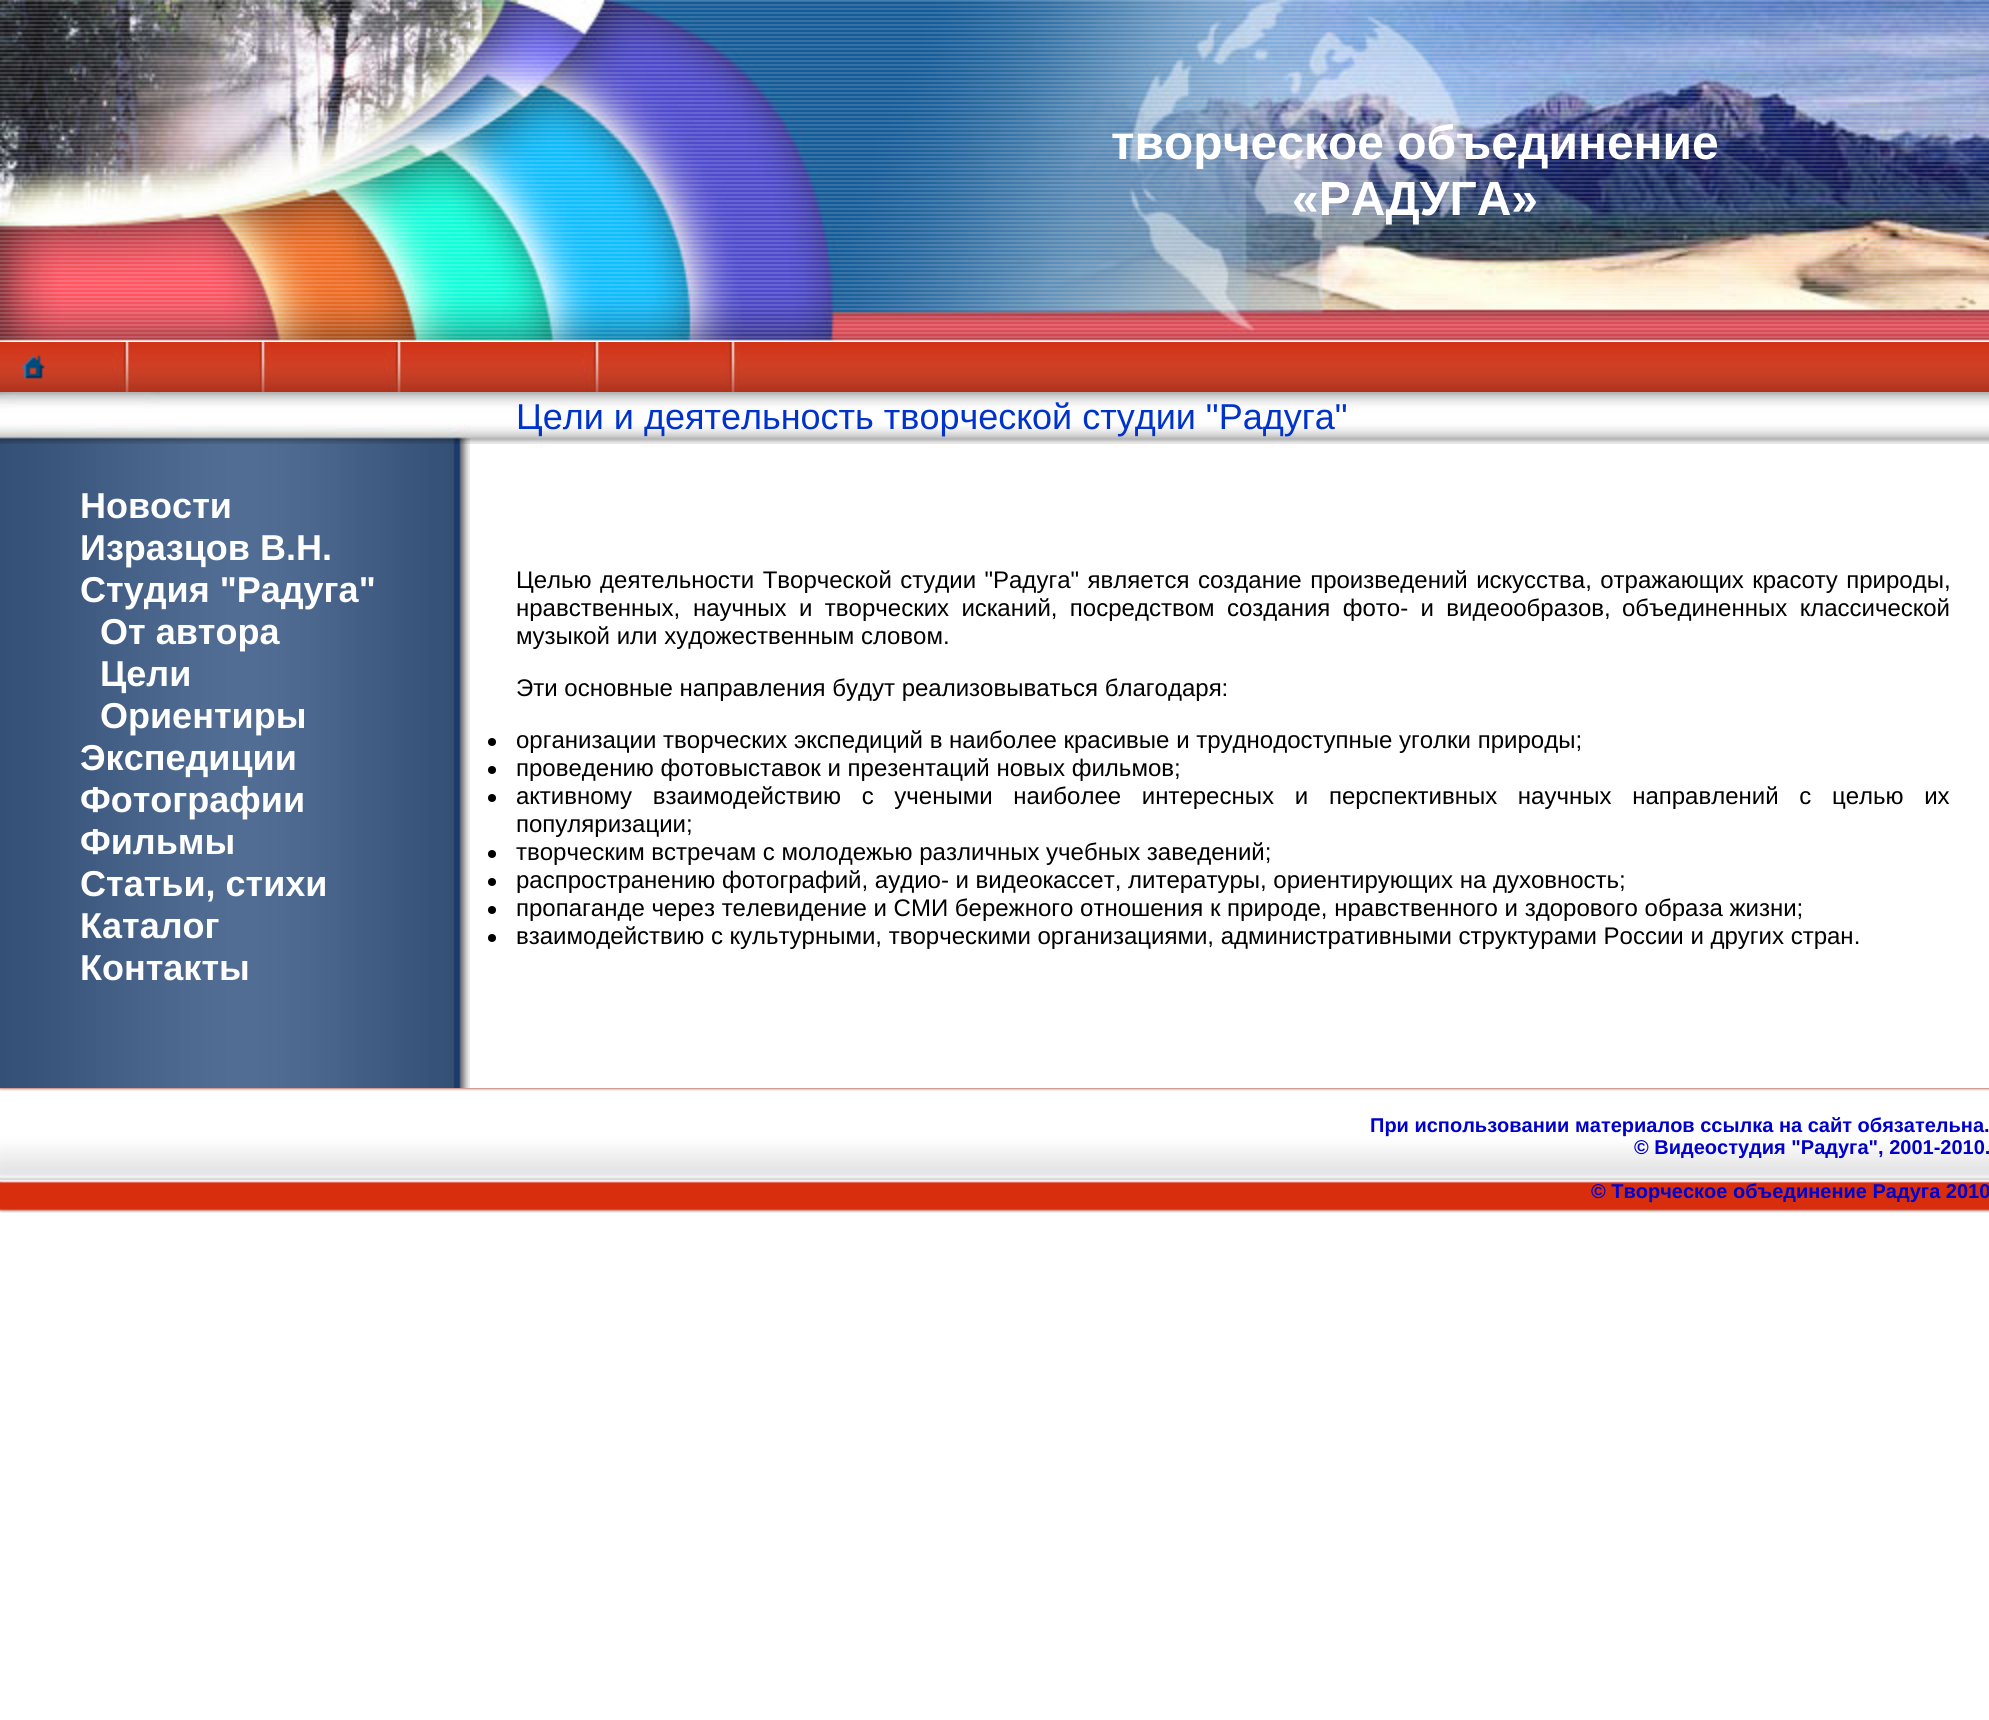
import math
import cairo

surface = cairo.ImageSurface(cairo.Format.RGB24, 1989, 1720)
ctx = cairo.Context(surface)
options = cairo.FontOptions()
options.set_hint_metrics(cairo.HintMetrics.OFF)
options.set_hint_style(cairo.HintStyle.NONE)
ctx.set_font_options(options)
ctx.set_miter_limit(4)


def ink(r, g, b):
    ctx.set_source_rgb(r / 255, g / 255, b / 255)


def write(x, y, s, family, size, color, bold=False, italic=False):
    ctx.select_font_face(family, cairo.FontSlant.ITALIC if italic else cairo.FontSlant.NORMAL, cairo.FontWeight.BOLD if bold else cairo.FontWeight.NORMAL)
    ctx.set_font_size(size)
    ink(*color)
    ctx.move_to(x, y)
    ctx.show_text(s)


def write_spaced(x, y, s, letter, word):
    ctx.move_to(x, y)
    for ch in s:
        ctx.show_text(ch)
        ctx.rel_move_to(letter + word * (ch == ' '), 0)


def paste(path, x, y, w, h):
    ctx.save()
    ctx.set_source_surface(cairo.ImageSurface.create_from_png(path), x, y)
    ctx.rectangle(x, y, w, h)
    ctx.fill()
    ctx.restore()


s1 = dict(family="Liberation Sans", size=48, color=(255, 255, 255), bold=True)
s2 = dict(family="Liberation Sans", size=36, color=(0, 51, 204))
s3 = dict(family="Liberation Sans", size=36, color=(255, 255, 255), bold=True)
s4 = dict(family="Liberation Sans", size=24, color=(0, 0, 0))
s5 = dict(family="Liberation Sans", size=20, color=(0, 0, 204), bold=True)

ink(255, 255, 255)
ctx.paint()
paste("pic1.png", 0, 0, 470, 342)
paste("pic2.png", 470, 0, 370, 342)
paste("pic3.png", 840, 0, 1149, 341)
write(1111, 159, "творческое объединение", **s1)
write(1292, 215, "«РАДУГА»", **s1)
paste("pic4.png", 0, 342, 470, 50)
paste("pic5.png", 21, 355, 24, 24)
paste("pic6.png", 470, 342, 370, 50)
paste("pic7.png", 840, 342, 1149, 50)
paste("pic8.png", 0, 392, 470, 52)
paste("pic9.png", 470, 392, 1519, 52)
write(516, 429, "Цели и деятельность творческой студии \"Радуга\"", **s2)
paste("pic10.png", 0, 444, 470, 644)
write(80, 518, "Новости", **s3)
write(80, 560, "Изразцов В.Н.", **s3)
write(80, 602, "Студия \"Радуга\"", **s3)
write(100, 644, "От автора", **s3)
write(100, 686, "Цели", **s3)
write(100, 728, "Ориентиры", **s3)
write(80, 770, "Экспедиции", **s3)
write(80, 812, "Фотографии", **s3)
write(80, 854, "Фильмы", **s3)
write(80, 896, "Статьи, стихи", **s3)
write(80, 938, "Каталог", **s3)
write(80, 980, "Контакты", **s3)
ctx.select_font_face("Liberation Sans")
ctx.set_font_size(24)
ink(0, 0, 0)
write_spaced(516, 588, "Целью деятельности Творческой студии \"Радуга\" является", 0, 1.75)
write_spaced(1198, 588, "создание произведений искусства, отражающих красоту природы,", 0, 1.75)
write(516, 616, "нравственных,", **s4)
write_spaced(693, 616, "научных и творческих исканий, посредством создания фото- и видеообразов,", 0, 5.75)
write_spaced(1622, 616, "объединенных классической", 0, 5.75)
write(516, 644, "музыкой или художественным словом.", **s4)
write(516, 696, "Эти основные направления будут реализовываться благодаря:", **s4)
ctx.new_path()
ctx.arc(492, 742, 4, 0, 2 * math.pi)
ctx.fill()
write(516, 748, "организации творческих экспедиций в наиболее красивые и труднодоступные уголки природы;", **s4)
ctx.new_path()
ctx.arc(492, 770, 4, 0, 2 * math.pi)
ctx.fill()
write(516, 776, "проведению фотовыставок и презентаций новых фильмов;", **s4)
ctx.new_path()
ctx.arc(492, 798, 4, 0, 2 * math.pi)
ctx.fill()
write_spaced(516, 804, "активному взаимодействию с учеными наиболее интересных и", 0, 14)
write_spaced(1329, 804, "перспективных научных направлений с целью их", 0, 14)
write(516, 832, "популяризации;", **s4)
ctx.new_path()
ctx.arc(492, 854, 4, 0, 2 * math.pi)
ctx.fill()
write(516, 860, "творческим встречам с молодежью различных учебных заведений;", **s4)
ctx.new_path()
ctx.arc(492, 882, 4, 0, 2 * math.pi)
ctx.fill()
write(516, 888, "распространению фотографий, аудио- и видеокассет, литературы, ориентирующих на духовность;", **s4)
ctx.new_path()
ctx.arc(492, 910, 4, 0, 2 * math.pi)
ctx.fill()
write(516, 916, "пропаганде через телевидение и СМИ бережного отношения к природе, нравственного и здорового образа жизни;", **s4)
ctx.new_path()
ctx.arc(492, 938, 4, 0, 2 * math.pi)
ctx.fill()
write(516, 944, "взаимодействию с культурными, творческими организациями, административными структурами России и других стран.", **s4)
paste("pic11.png", 0, 1088, 2, 125)
paste("pic12.png", 2, 1088, 1987, 125)
write(1370, 1132, "При использовании материалов ссылка на сайт обязательна.", **s5)
write(1634, 1154, "© Видеостудия \"Радуга\", 2001-2010.", **s5)
write(1591, 1198, "© Творческое объединение Радуга 2010", **s5)
surface.write_to_png("screenshot.png")
